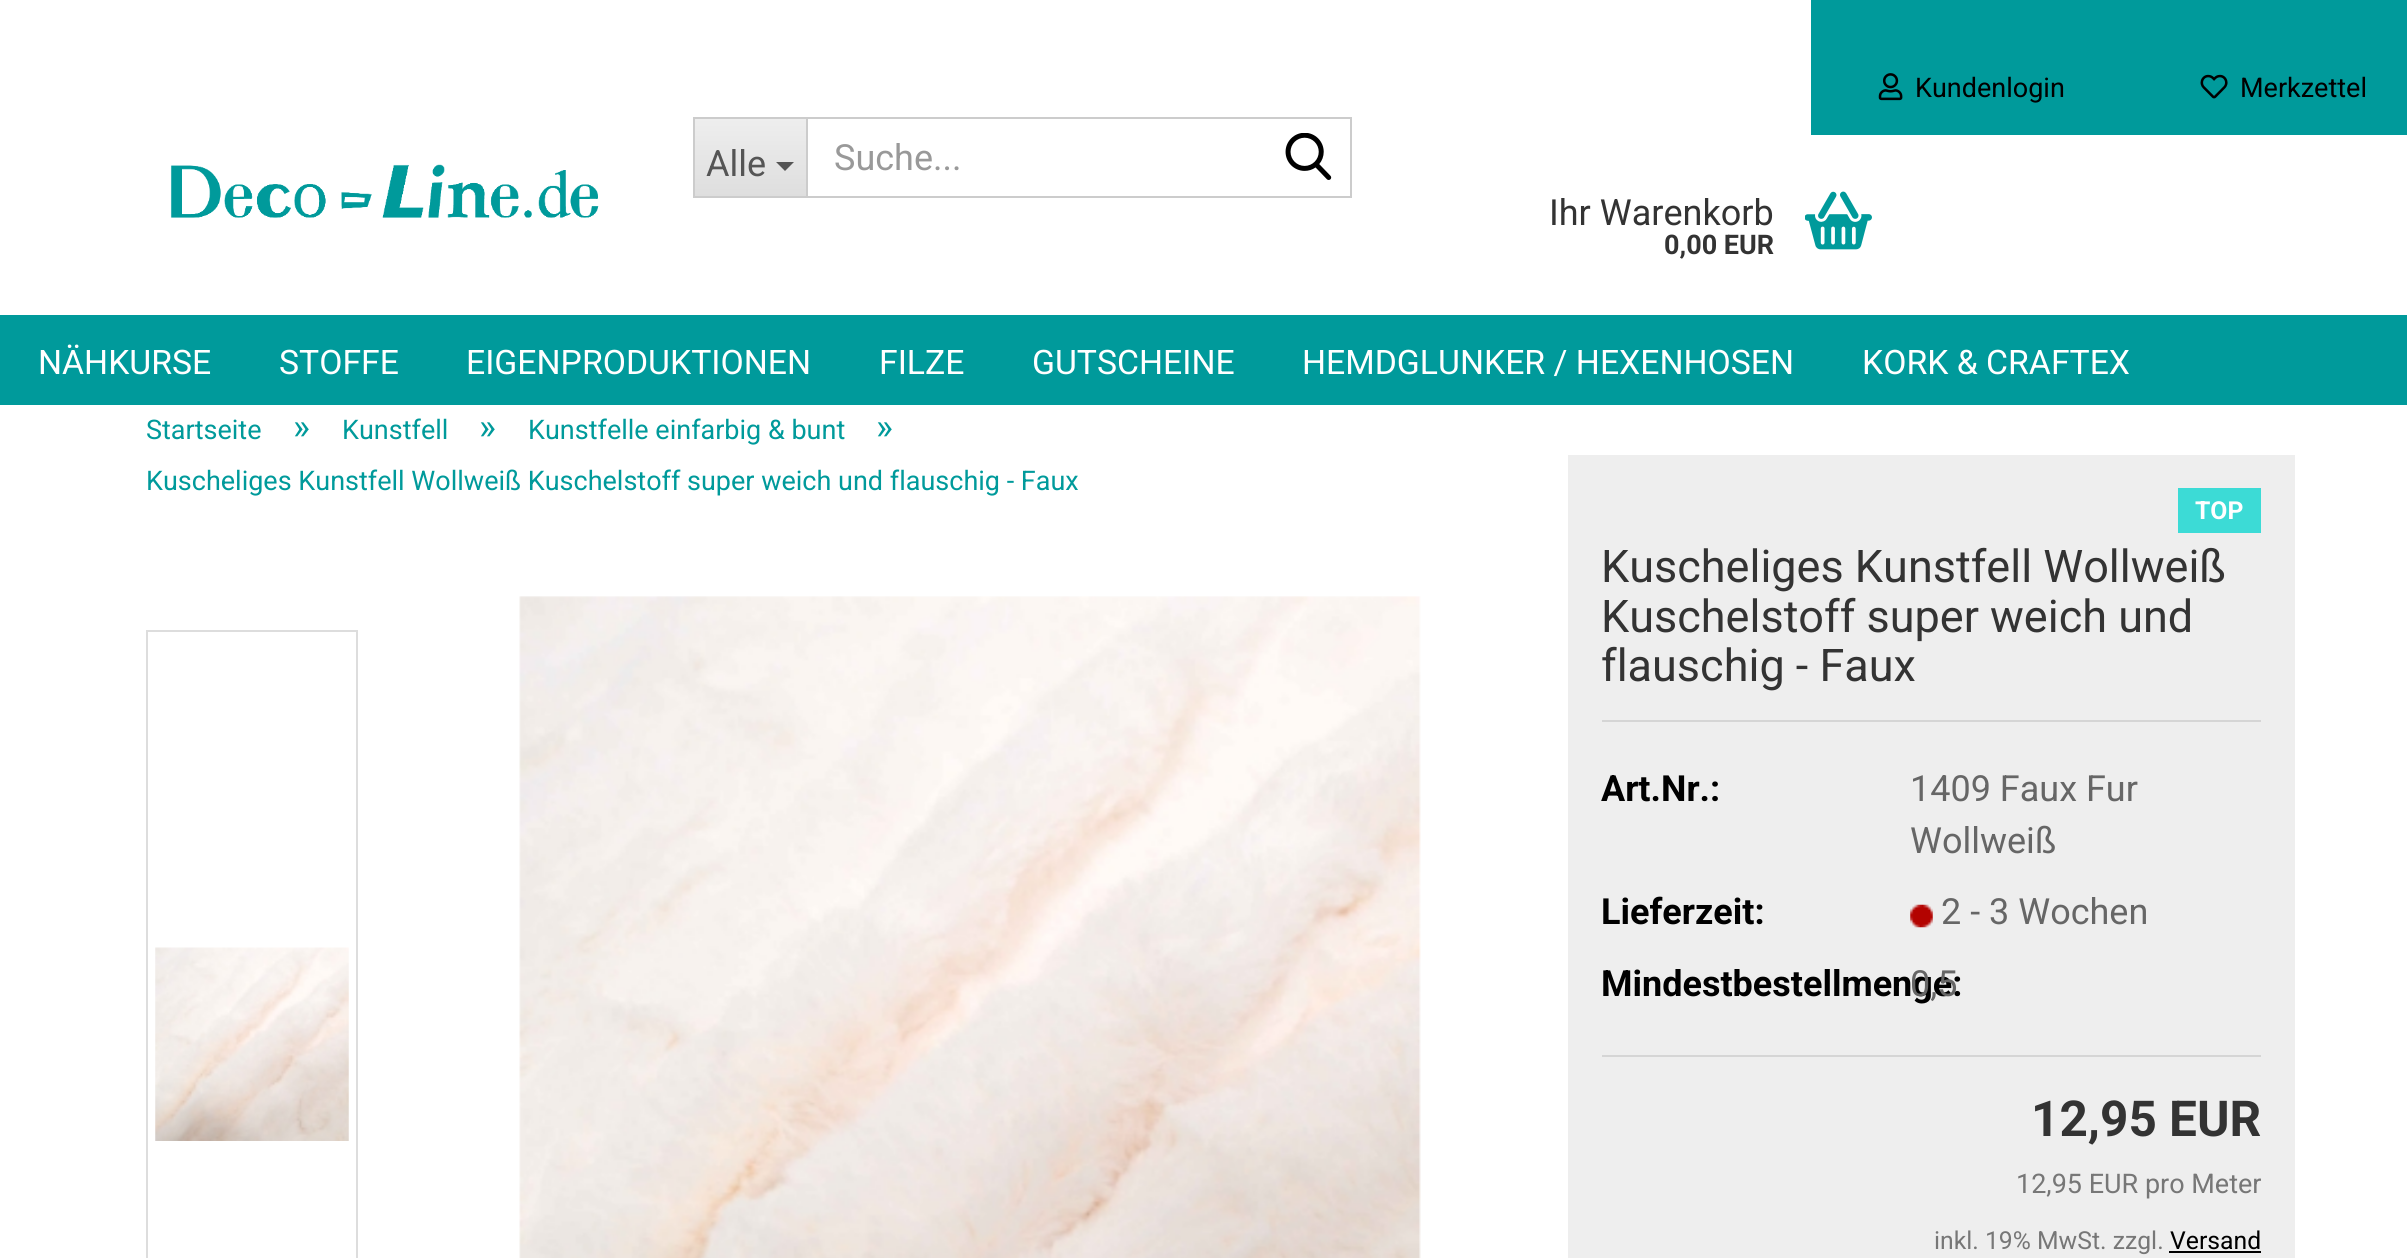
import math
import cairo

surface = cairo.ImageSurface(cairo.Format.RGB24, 2407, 1258)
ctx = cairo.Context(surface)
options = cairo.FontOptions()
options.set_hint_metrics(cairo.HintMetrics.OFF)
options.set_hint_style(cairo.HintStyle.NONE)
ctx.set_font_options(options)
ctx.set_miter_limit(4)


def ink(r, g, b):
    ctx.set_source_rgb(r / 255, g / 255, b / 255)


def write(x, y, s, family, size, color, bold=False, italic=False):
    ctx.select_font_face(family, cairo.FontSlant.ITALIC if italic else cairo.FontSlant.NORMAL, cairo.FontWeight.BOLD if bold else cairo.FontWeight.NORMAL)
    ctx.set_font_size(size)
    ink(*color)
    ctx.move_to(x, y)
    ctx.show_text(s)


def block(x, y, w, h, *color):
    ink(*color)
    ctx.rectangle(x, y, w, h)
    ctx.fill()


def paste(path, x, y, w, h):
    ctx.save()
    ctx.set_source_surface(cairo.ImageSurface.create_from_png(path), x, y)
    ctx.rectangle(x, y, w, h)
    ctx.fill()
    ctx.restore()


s1 = dict(family="Roboto", size=27, color=(0, 0, 0))
s2 = dict(family="Roboto", size=36, color=(85, 85, 85))
s3 = dict(family="Roboto", size=36, color=(153, 153, 153))
s4 = dict(family="Roboto", size=36, color=(51, 51, 51))
s5 = dict(family="Roboto", size=27, color=(51, 51, 51), bold=True)
s6 = dict(family="Roboto", size=33.75, color=(255, 255, 255))
s7 = dict(family="Roboto", size=27, color=(0, 154, 155))
s8 = dict(family="Roboto", size=36, color=(0, 154, 155))
s9 = dict(family="Roboto", size=24.75, color=(255, 255, 255), bold=True)
s10 = dict(family="Roboto", size=45, color=(51, 51, 51))
s11 = dict(family="Roboto", size=36, color=(0, 0, 0), bold=True)
s12 = dict(family="Roboto", size=36, color=(102, 102, 102))
s13 = dict(family="Roboto", size=49.5, color=(51, 51, 51), bold=True)
s14 = dict(family="Roboto", size=27, color=(119, 119, 119))
s15 = dict(family="Roboto", size=24.75, color=(119, 119, 119))
s16 = dict(family="Roboto", size=24.75, color=(0, 0, 0))

ink(255, 255, 255)
ctx.paint()
block(1811, 0, 596, 135, 0, 154, 155)
paste("pic1.png", 1878, 73, 25, 28)
write(1915, 97, "Kundenlogin", **s1)
paste("pic2.png", 2200, 74, 28, 25)
write(2240, 97, "Merkzettel", **s1)
gradient = cairo.LinearGradient(750, 119, 750, 196)
gradient.add_color_stop_rgba(0, 0.933, 0.933, 0.933, 1)
gradient.add_color_stop_rgba(1, 0.871, 0.871, 0.871, 1)
ctx.set_source(gradient)
ctx.rectangle(695, 119, 111, 77)
ctx.fill()
block(693, 117, 113, 2, 204, 204, 204)
block(693, 196, 113, 2, 204, 204, 204)
block(693, 117, 2, 81, 204, 204, 204)
write(706, 176, "Alle", **s2)
ctx.new_path()
ctx.move_to(776, 162)
ctx.line_to(794, 162)
ctx.line_to(785, 171)
ctx.close_path()
ctx.fill()
ctx.rectangle(807, 118, 544, 79)
ink(204, 204, 204)
ctx.stroke()
write(834, 170, "Suche...", **s3)
paste("pic3.png", 1285, 133, 47, 47)
paste("pic4.png", 170, 164, 429, 54)
write(1549, 225, "Ihr Warenkorb", **s4)
write(1664, 254, "0,00 EUR", **s5)
paste("pic5.png", 1805, 191, 67, 59)
block(0, 315, 2407, 90, 0, 154, 155)
write(38, 374, "NÄHKURSE", **s6)
write(279, 374, "STOFFE", **s6)
write(466, 374, "EIGENPRODUKTIONEN", **s6)
write(879, 374, "FILZE", **s6)
write(1032, 374, "GUTSCHEINE", **s6)
write(1302, 374, "HEMDGLUNKER / HEXENHOSEN", **s6)
write(1862, 374, "KORK & CRAFTEX", **s6)
write(146, 439, "Startseite", **s7)
write(293, 439, "»", **s8)
write(342, 439, "Kunstfell", **s7)
write(479, 439, "»", **s8)
write(528, 439, "Kunstfelle einfarbig & bunt", **s7)
write(876, 439, "»", **s8)
write(146, 490, "Kuscheliges Kunstfell Wollweiß Kuschelstoff super weich und flauschig - Faux", **s7)
ctx.rectangle(147, 631, 210, 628)
ink(221, 221, 221)
ctx.stroke()
paste("pic6.png", 155, 947, 194, 194)
paste("pic7.png", 519, 596, 902, 662)
block(1568, 455, 727, 803, 238, 238, 238)
block(2178, 488, 83, 45, 60, 219, 214)
write(2195, 519, "TOP", **s9)
block(1602, 720, 659, 2, 213, 213, 213)
write(1601, 582, "Kuscheliges Kunstfell Wollweiß", **s10)
write(1601, 632, "Kuschelstoff super weich und", **s10)
write(1601, 681, "flauschig - Faux", **s10)
block(1602, 1055, 659, 2, 213, 213, 213)
write(1601, 801, "Art.Nr.:", **s11)
write(1910, 801, "1409 Faux Fur", **s12)
write(1910, 853, "Wollweiß", **s12)
write(1601, 924, "Lieferzeit:", **s11)
paste("pic8.png", 1910, 904, 23, 24)
write(1941, 924, "2 - 3 Wochen", **s12)
write(1601, 996, "Mindestbestellmenge:", **s11)
write(1910, 996, "0,5", **s12)
write(2031, 1136, "12,95 EUR", **s13)
write(2016, 1193, "12,95 EUR pro Meter", **s14)
write(1934, 1249, "inkl. 19% MwSt. zzgl.", **s15)
write(2170, 1249, "Versand", **s16)
block(2169, 1251, 92, 2, 0, 0, 0)
surface.write_to_png("screenshot.png")
